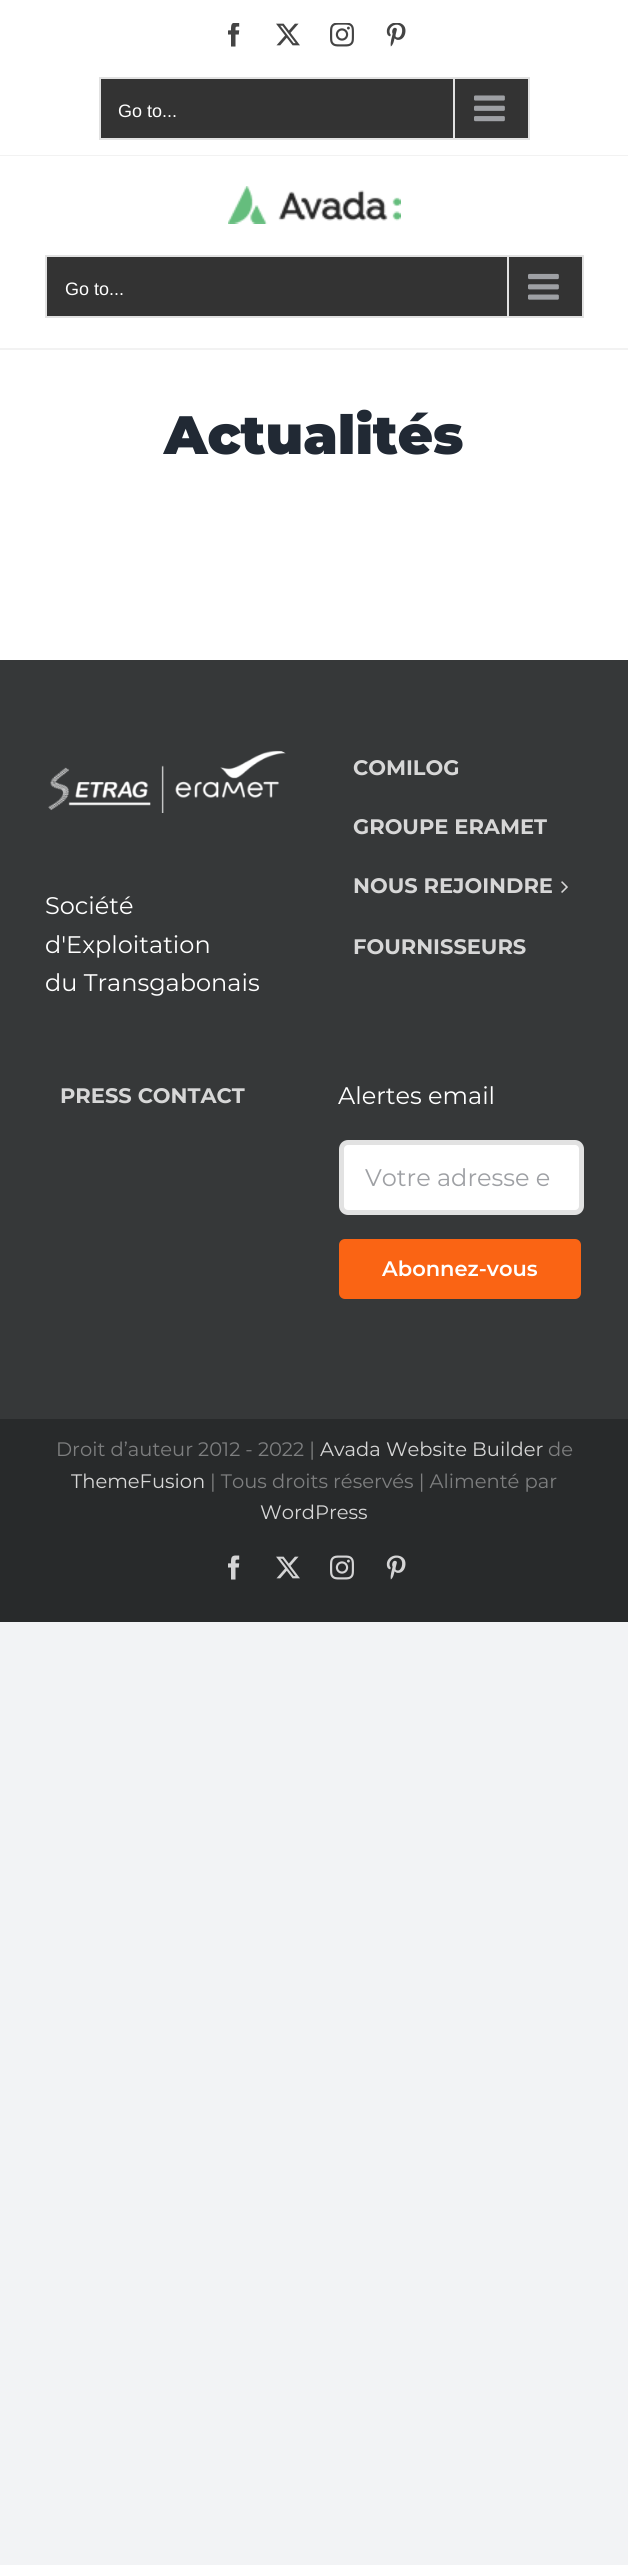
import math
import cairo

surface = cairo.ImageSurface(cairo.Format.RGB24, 628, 2565)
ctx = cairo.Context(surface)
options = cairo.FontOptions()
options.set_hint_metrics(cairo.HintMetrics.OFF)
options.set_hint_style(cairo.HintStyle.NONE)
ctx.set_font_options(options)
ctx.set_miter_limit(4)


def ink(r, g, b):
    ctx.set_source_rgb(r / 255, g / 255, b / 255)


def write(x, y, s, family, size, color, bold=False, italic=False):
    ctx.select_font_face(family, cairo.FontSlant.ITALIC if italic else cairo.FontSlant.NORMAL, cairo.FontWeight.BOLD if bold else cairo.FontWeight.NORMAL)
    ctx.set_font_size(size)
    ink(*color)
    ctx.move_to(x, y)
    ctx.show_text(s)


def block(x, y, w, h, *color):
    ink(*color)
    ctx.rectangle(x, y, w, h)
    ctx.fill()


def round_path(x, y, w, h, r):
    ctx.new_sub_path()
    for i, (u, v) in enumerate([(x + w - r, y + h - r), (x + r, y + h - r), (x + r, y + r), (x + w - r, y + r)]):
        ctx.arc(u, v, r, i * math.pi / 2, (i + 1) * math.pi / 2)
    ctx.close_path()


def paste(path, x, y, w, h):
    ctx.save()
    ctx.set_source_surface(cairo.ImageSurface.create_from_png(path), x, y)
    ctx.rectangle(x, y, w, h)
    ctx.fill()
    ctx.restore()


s1 = dict(family="Liberation Sans", size=18, color=(255, 255, 255))
s2 = dict(family="Montserrat Black", size=54, color=(33, 41, 52))
s3 = dict(family="Montserrat", size=24, color=(255, 255, 255))
s4 = dict(family="Montserrat", size=21, color=(215, 215, 215), bold=True)
s5 = dict(family="Montserrat", size=24, color=(158, 160, 164))
s6 = dict(family="Montserrat SemiBold", size=21, color=(255, 255, 255))
s7 = dict(family="Montserrat", size=19.5, color=(126, 127, 128))
s8 = dict(family="Montserrat", size=19.5, color=(215, 215, 215))

ink(242, 243, 245)
ctx.paint()
block(0, 0, 628, 660, 255, 255, 255)
block(0, 155, 628, 1, 242, 242, 242)
paste("pic1.png", 228, 23, 12, 24)
paste("pic2.png", 276, 23, 24, 23)
paste("pic3.png", 330, 23, 24, 24)
paste("pic4.png", 386, 23, 20, 24)
ink(51, 51, 51)
ctx.rectangle(100, 78, 429, 61)
ctx.fill_preserve()
ink(226, 226, 226)
ctx.stroke()
write(118, 117, "Go to...", **s1)
block(453, 78, 2, 60, 226, 226, 226)
paste("pic5.png", 474, 95, 31, 27)
block(0, 348, 628, 2, 242, 242, 242)
paste("pic6.png", 228, 186, 173, 38)
ink(51, 51, 51)
ctx.rectangle(46, 256, 537, 61)
ctx.fill_preserve()
ink(226, 226, 226)
ctx.stroke()
write(65, 295, "Go to...", **s1)
block(507, 257, 2, 60, 226, 226, 226)
paste("pic7.png", 528, 273, 31, 27)
write(164, 454, "Actualités", **s2)
block(0, 660, 628, 759, 54, 56, 57)
paste("pic8.png", 48, 750, 238, 63)
write(45, 914, "Société", **s3)
write(45, 953, "d'Exploitation", **s3)
write(45, 991, "du Transgabonais", **s3)
write(353, 775, "COMILOG", **s4)
write(353, 834, "GROUPE ERAMET", **s4)
write(353, 893, "NOUS REJOINDRE", **s4)
paste("pic9.png", 561, 881, 7, 12)
write(353, 954, "FOURNISSEURS", **s4)
write(60, 1103, "PRESS CONTACT", **s4)
write(338, 1104, "Alertes email", **s3)
round_path(341.5, 1142.5, 240, 70, 6.5)
ctx.fill_preserve()
ink(226, 226, 226)
ctx.set_line_width(5)
ctx.stroke()
write(365, 1186, "Votre adresse e", **s5)
ink(250, 100, 20)
round_path(339, 1239, 242, 60, 6)
ctx.fill()
write(382, 1276, "Abonnez-vous", **s6)
block(0, 1419, 628, 203, 40, 42, 43)
write(56, 1456, "Droit d’auteur 2012 - 2022 |", **s7)
write(320, 1456, "Avada Website Builder", **s8)
write(548, 1456, "de", **s7)
write(71, 1488, "ThemeFusion", **s8)
write(210, 1488, "| Tous droits réservés | Alimenté par", **s7)
write(260, 1519, "WordPress", **s8)
paste("pic10.png", 228, 1555, 12, 25)
paste("pic11.png", 276, 1556, 24, 23)
paste("pic12.png", 330, 1555, 24, 25)
paste("pic13.png", 386, 1555, 20, 25)
surface.write_to_png("screenshot.png")
